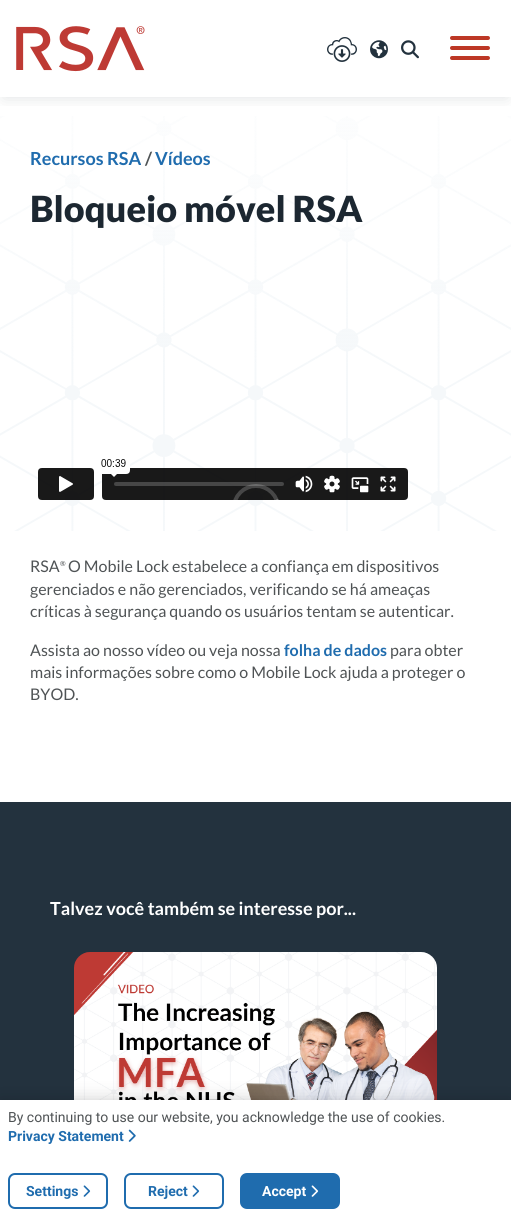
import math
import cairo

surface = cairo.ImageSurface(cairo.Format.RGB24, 511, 1217)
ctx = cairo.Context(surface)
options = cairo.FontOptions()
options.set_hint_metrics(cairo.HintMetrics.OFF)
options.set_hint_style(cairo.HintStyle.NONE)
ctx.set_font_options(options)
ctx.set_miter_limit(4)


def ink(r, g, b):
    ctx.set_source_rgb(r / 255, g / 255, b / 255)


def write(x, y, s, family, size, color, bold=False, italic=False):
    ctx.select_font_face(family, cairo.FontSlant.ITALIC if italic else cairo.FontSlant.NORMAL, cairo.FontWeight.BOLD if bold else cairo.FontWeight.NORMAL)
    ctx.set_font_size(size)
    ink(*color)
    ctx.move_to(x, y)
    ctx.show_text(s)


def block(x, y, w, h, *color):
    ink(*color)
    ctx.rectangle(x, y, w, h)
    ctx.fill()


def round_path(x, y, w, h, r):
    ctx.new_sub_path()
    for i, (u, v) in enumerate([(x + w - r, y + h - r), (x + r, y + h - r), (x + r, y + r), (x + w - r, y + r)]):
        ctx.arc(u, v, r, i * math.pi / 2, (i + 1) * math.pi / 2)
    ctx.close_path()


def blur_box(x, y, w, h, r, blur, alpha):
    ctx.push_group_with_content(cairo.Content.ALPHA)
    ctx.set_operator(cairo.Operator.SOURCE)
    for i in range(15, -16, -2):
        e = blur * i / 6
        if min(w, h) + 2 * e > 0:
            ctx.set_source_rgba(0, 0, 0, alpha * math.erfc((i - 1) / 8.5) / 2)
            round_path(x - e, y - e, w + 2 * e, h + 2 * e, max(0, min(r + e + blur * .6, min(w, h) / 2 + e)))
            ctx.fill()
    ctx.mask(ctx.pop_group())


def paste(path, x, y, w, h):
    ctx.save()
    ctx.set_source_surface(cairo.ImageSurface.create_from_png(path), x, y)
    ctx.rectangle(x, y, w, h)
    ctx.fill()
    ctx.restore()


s1 = dict(family="Lato", size=18, color=(31, 108, 174), bold=True)
s2 = dict(family="Lato", size=18, color=(79, 83, 85), bold=True)
s3 = dict(family="Lato Black", size=36, color=(28, 39, 49))
s4 = dict(family="Lato", size=16, color=(79, 83, 85))
s5 = dict(family="Lato", size=7, color=(79, 83, 85))
s6 = dict(family="Lato", size=16, color=(31, 108, 174), bold=True)
s7 = dict(family="Lato", size=18, color=(255, 255, 255), bold=True)
s8 = dict(family="Roboto", size=14, color=(79, 83, 85))
s9 = dict(family="Roboto", size=14, color=(31, 108, 174), bold=True)
s10 = dict(family="Roboto", size=14, color=(255, 255, 255), bold=True)

ink(255, 255, 255)
ctx.paint()
paste("pic5.png", 0, 116, 511, 415)
ctx.save()
ctx.rectangle(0, 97, 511, 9)
ctx.clip()
ink(35, 50, 62)
blur_box(4, 8, 503, 89, 0, 8, 0.15)
ctx.restore()
paste("pic1.png", 16, 26, 129, 46)
paste("pic2.png", 327, 37, 30, 25)
paste("pic3.png", 370, 40, 18, 19)
paste("pic4.png", 401, 40, 18, 19)
ink(189, 56, 38)
round_path(450, 36, 40, 4, 2)
ctx.fill()
round_path(450, 46, 40, 4, 2)
ctx.fill()
round_path(450, 56, 40, 4, 2)
ctx.fill()
write(30, 165, "Recursos RSA", **s1)
write(145, 165, "/", **s2)
write(155, 165, "Vídeos", **s1)
write(30, 222, "Bloqueio móvel RSA", **s3)
paste("pic6.png", 38, 459, 421, 41)
write(30, 572, "RSA", **s4)
write(60, 566, "®", **s5)
write(68, 572, "O Mobile Lock estabelece a confiança em dispositivos", **s4)
write(30, 595, "gerenciados e não gerenciados, verificando se há ameaças", **s4)
write(30, 617, "críticas à segurança quando os usuários tentam se autenticar.", **s4)
write(30, 656, "Assista ao nosso vídeo ou veja nossa", **s4)
write(284, 656, "folha de dados", **s6)
write(390, 656, "para obter", **s4)
write(30, 678, "mais informações sobre como o Mobile Lock ajuda a proteger o", **s4)
write(30, 700, "BYOD.", **s4)
block(0, 802, 511, 298, 35, 50, 62)
write(50, 915, "Talvez você também se interesse por...", **s7)
paste("pic7.png", 74, 952, 363, 148)
ink(0, 0, 0)
blur_box(0, 1100, 511, 117, 0, 9, 0.2)
block(0, 1100, 511, 117, 255, 255, 255)
write(8, 1122, "By continuing to use our website, you acknowledge the use of cookies.", **s8)
write(8, 1141, "Privacy Statement", **s9)
paste("pic8.png", 128, 1129, 8, 13)
round_path(9, 1174, 98, 34, 6)
ctx.stroke()
write(26, 1196, "Settings", **s9)
paste("pic9.png", 83, 1185, 8, 12)
round_path(125, 1174, 98, 34, 6)
ctx.stroke()
write(148, 1196, "Reject", **s9)
paste("pic9.png", 192, 1185, 8, 12)
round_path(241, 1174, 98, 34, 6)
ctx.fill_preserve()
ctx.stroke()
write(262, 1196, "Accept", **s10)
paste("pic10.png", 311, 1185, 8, 12)
surface.write_to_png("screenshot.png")
